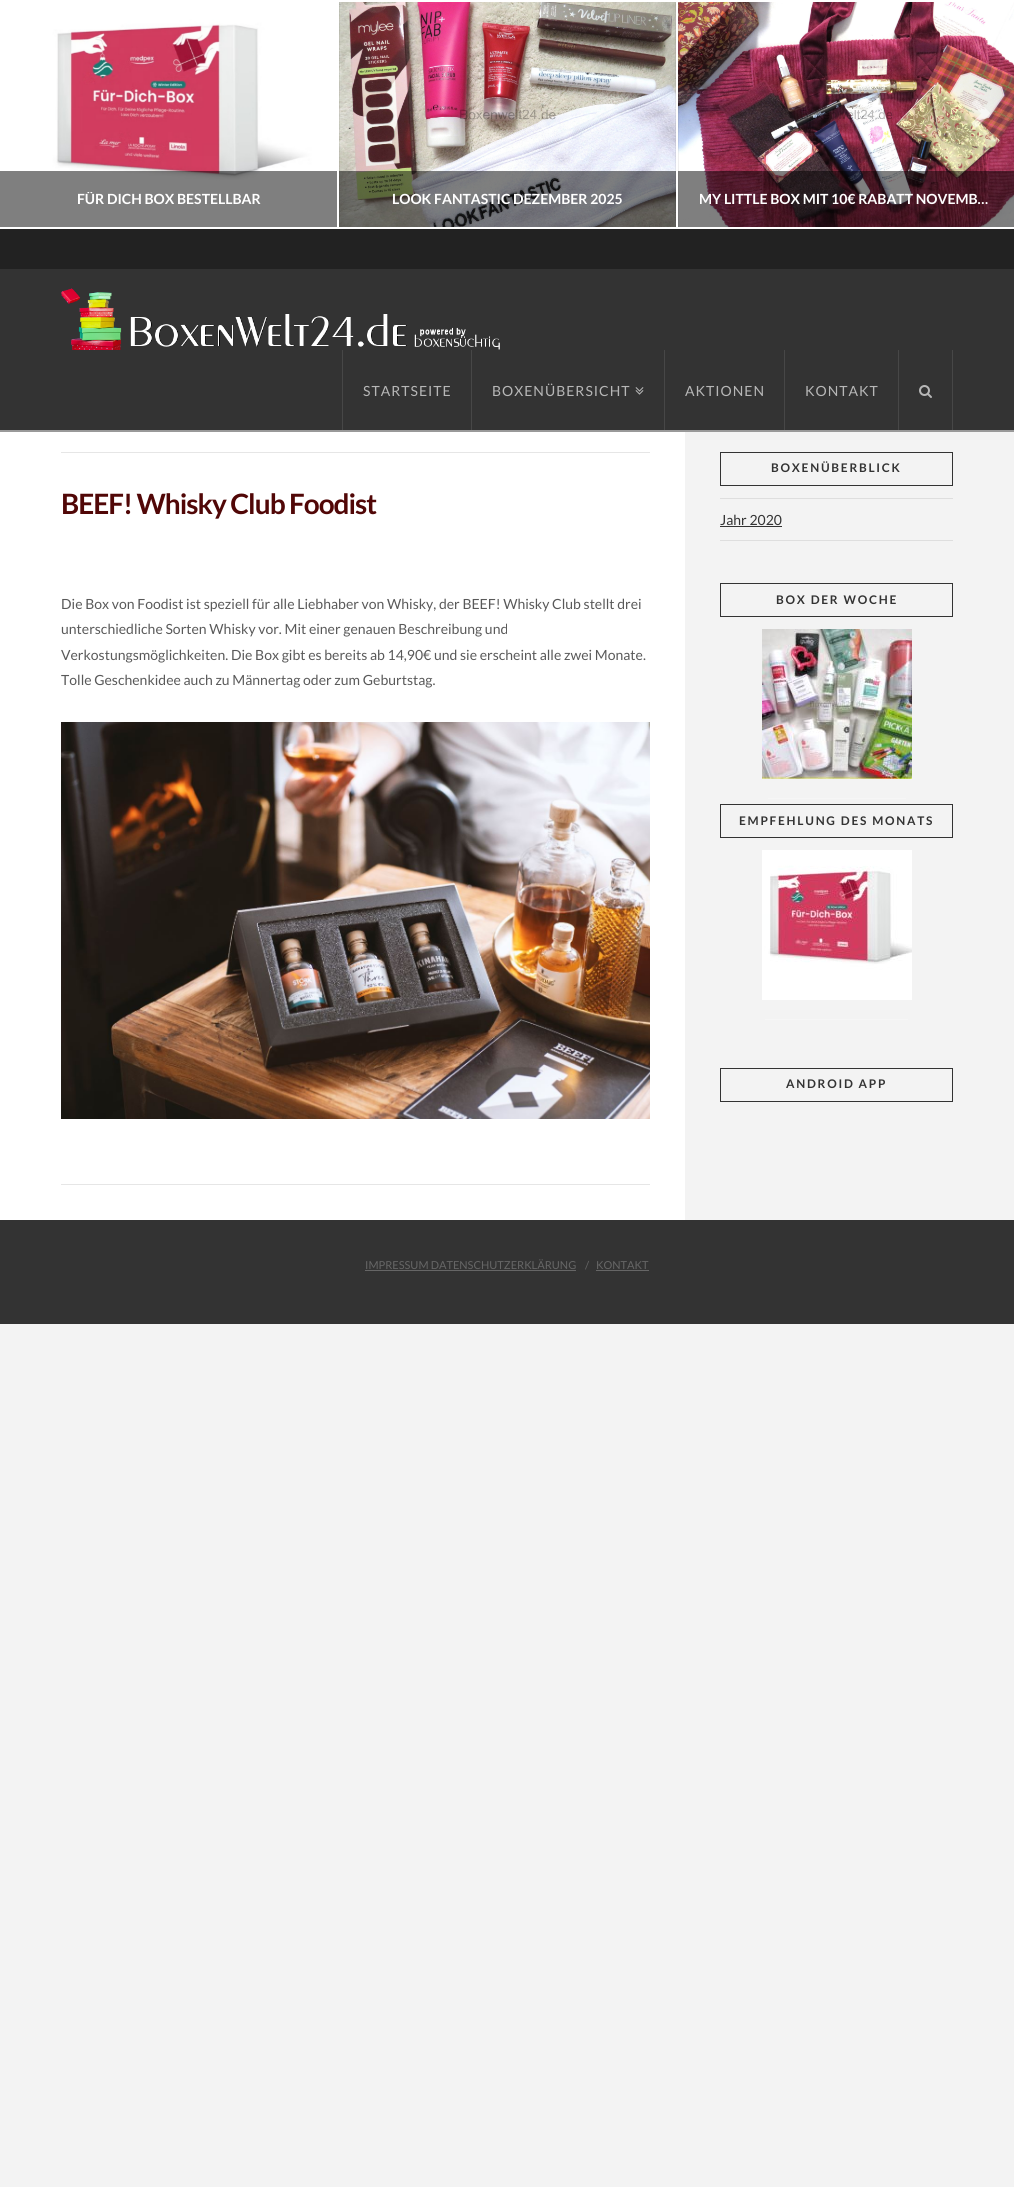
import math
import cairo

surface = cairo.ImageSurface(cairo.Format.RGB24, 1014, 2187)
ctx = cairo.Context(surface)
options = cairo.FontOptions()
options.set_hint_metrics(cairo.HintMetrics.OFF)
options.set_hint_style(cairo.HintStyle.NONE)
ctx.set_font_options(options)
ctx.set_miter_limit(4)


def ink(r, g, b):
    ctx.set_source_rgb(r / 255, g / 255, b / 255)


def write(x, y, s, family, size, color, bold=False, italic=False):
    ctx.select_font_face(family, cairo.FontSlant.ITALIC if italic else cairo.FontSlant.NORMAL, cairo.FontWeight.BOLD if bold else cairo.FontWeight.NORMAL)
    ctx.set_font_size(size)
    ink(*color)
    ctx.move_to(x, y)
    ctx.show_text(s)


def write_spaced(x, y, s, letter, word):
    ctx.move_to(x, y)
    for ch in s:
        ctx.show_text(ch)
        ctx.rel_move_to(letter + word * (ch == ' '), 0)


def block(x, y, w, h, *color):
    ink(*color)
    ctx.rectangle(x, y, w, h)
    ctx.fill()


def paste(path, x, y, w, h):
    ctx.save()
    ctx.set_source_surface(cairo.ImageSurface.create_from_png(path), x, y)
    ctx.rectangle(x, y, w, h)
    ctx.fill()
    ctx.restore()


s1 = dict(family="Lato", size=14, color=(255, 255, 255), bold=True)
s2 = dict(family="Lato", size=14, color=(89, 89, 89))
s3 = dict(family="Lato", size=14, color=(51, 51, 51))
s4 = dict(family="Lato", size=11, color=(102, 102, 102))

ink(243, 243, 243)
ctx.paint()
block(0, 0, 1014, 229, 255, 255, 255)
paste("pic4.png", 678, 2, 336, 225)
paste("pic1.png", 971, 99, 19, 29)
paste("pic2.png", 0, 2, 337, 225)
ctx.set_source_rgba(0, 0, 0, 0.5)
ctx.rectangle(0, 171, 337, 56)
ctx.fill()
ctx.save()
ctx.rectangle(21, 192, 295, 14)
ctx.clip()
write(77, 204, "FÜR DICH BOX BESTELLBAR", **s1)
ctx.restore()
paste("pic3.png", 339, 2, 337, 225)
ctx.rectangle(339, 171, 337, 56)
ctx.fill()
write(392, 204, "LOOK FANTASTIC DEZEMBER 2025", **s1)
ctx.set_source_rgba(0, 0, 0, 0.5)
ctx.rectangle(678, 171, 336, 56)
ctx.fill()
write(699, 204, "MY LITTLE BOX MIT 10€ RABATT NOVEMB…", **s1)
block(0, 229, 1014, 40, 34, 34, 34)
block(0, 269, 1014, 161, 51, 51, 51)
block(0, 430, 1014, 2, 153, 153, 153)
paste("pic5.png", 61, 288, 439, 62)
block(471, 350, 1, 80, 71, 71, 71)
block(342, 350, 1, 80, 71, 71, 71)
ctx.select_font_face("Lato")
ink(183, 183, 183)
write_spaced(363, 396, "STARTSEITE", 1, 0)
block(664, 350, 1, 80, 71, 71, 71)
ink(183, 183, 183)
write_spaced(492, 396, "BOXENÜBERSICHT", 1, 0)
paste("pic6.png", 635, 387, 9, 8)
block(784, 350, 1, 80, 71, 71, 71)
ink(183, 183, 183)
write_spaced(685, 396, "AKTIONEN", 1, 0)
block(898, 350, 1, 80, 71, 71, 71)
ink(183, 183, 183)
write_spaced(805, 396, "KONTAKT", 1, 0)
block(952, 350, 1, 80, 71, 71, 71)
paste("pic7.png", 919, 385, 13, 13)
block(0, 432, 685, 788, 255, 255, 255)
block(61, 452, 589, 1, 230, 230, 230)
block(61, 1184, 589, 1, 230, 230, 230)
ctx.select_font_face("Lato", cairo.FontSlant.NORMAL, cairo.FontWeight.BOLD)
ctx.set_font_size(28)
ink(81, 7, 7)
write_spaced(61, 514, "BEEF! Whisky Club Foodist", -1, 0)
write(61, 609, "Die Box von Foodist ist speziell für alle Liebhaber von Whisky, der BEEF! Whisky Club stellt drei", **s2)
write(61, 634, "unterschiedliche Sorten Whisky vor. Mit einer genauen Beschreibung und", **s2)
write(61, 660, "Verkostungsmöglichkeiten. Die Box gibt es bereits ab 14,90€ und sie erscheint alle zwei Monate.", **s2)
write(61, 685, "Tolle Geschenkidee auch zu Männertag oder zum Geburtstag.", **s2)
paste("pic8.png", 61, 722, 589, 397)
ctx.rectangle(720.5, 452.5, 232, 33)
ink(51, 51, 51)
ctx.set_line_width(1)
ctx.stroke()
ctx.select_font_face("Lato", cairo.FontSlant.NORMAL, cairo.FontWeight.BOLD)
ctx.set_font_size(11.9)
write_spaced(771, 472, "BOXENÜBERBLICK", 1.75, 0)
block(720, 498, 233, 1, 222, 222, 222)
block(720, 540, 233, 1, 222, 222, 222)
write(720, 525, "Jahr 2020", **s3)
block(720, 526, 62, 1, 51, 51, 51)
ctx.rectangle(720.5, 583.5, 232, 33)
ctx.stroke()
ctx.select_font_face("Lato", cairo.FontSlant.NORMAL, cairo.FontWeight.BOLD)
ctx.set_font_size(11.9)
write_spaced(776, 604, "BOX DER WOCHE", 1.75, 0)
paste("pic9.png", 762, 629, 150, 150)
block(768, 798, 138, 1, 246, 246, 246)
ctx.rectangle(720.5, 804.5, 232, 33)
ink(51, 51, 51)
ctx.stroke()
write_spaced(739, 825, "EMPFEHLUNG DES MONATS", 1.75, 0)
paste("pic10.png", 762, 850, 150, 150)
block(765, 1019, 143, 1, 246, 246, 246)
ctx.rectangle(720.5, 1068.5, 232, 33)
ink(51, 51, 51)
ctx.stroke()
write_spaced(786, 1088, "ANDROID APP", 1.75, 0)
block(0, 1220, 1014, 104, 51, 51, 51)
write(365, 1269, "IMPRESSUM DATENSCHUTZERKLÄRUNG", **s4)
block(365, 1270, 211, 1, 102, 102, 102)
write(585, 1269, "/", **s4)
write(596, 1269, "KONTAKT", **s4)
block(596, 1270, 53, 1, 102, 102, 102)
surface.write_to_png("screenshot.png")
